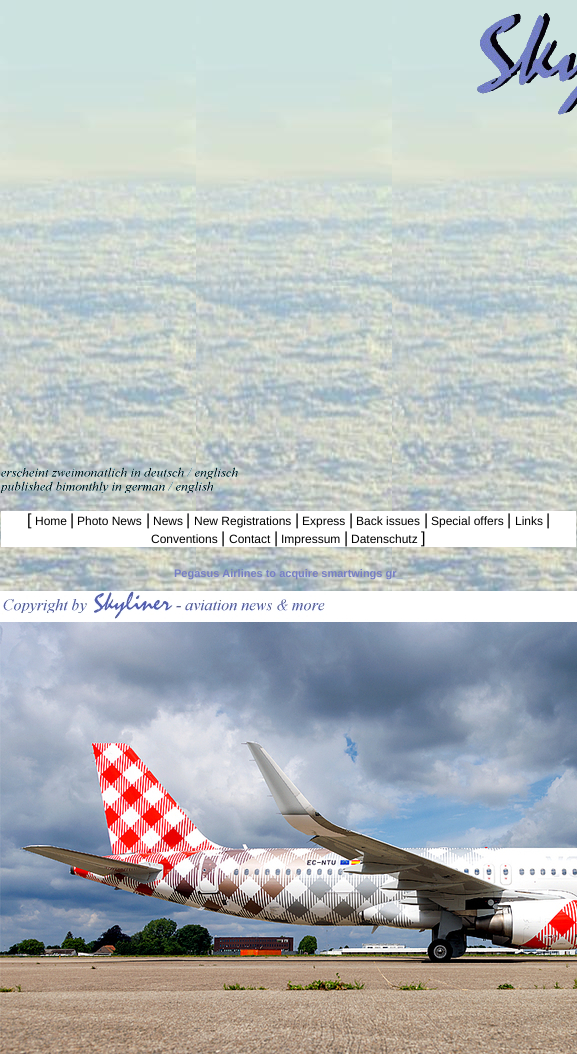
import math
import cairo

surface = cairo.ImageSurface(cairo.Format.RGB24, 577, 1054)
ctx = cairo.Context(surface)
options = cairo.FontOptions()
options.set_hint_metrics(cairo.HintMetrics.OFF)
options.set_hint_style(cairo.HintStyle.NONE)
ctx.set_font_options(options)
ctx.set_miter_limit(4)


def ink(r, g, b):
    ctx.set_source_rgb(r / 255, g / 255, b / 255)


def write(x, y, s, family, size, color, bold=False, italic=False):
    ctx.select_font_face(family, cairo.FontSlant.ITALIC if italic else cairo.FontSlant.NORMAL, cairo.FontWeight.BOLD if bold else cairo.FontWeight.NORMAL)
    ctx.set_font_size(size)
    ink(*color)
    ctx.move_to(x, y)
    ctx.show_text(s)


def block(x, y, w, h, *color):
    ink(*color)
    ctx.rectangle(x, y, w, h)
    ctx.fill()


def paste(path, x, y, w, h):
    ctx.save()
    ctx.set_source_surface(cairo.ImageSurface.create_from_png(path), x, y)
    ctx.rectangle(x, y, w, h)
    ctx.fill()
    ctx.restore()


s1 = dict(family="Liberation Sans", size=16, color=(0, 0, 0))
s2 = dict(family="Liberation Sans", size=12, color=(0, 0, 0))
s3 = dict(family="Liberation Sans", size=11, color=(118, 126, 198), bold=True)

ink(255, 255, 255)
ctx.paint()
paste("pic1.png", 0, 0, 577, 591)
paste("pic2.png", 477, 13, 100, 102)
paste("pic3.png", 1, 467, 237, 26)
block(1, 511, 575, 36, 255, 255, 255)
write(27, 525, "[", **s1)
write(35, 525, "Home", **s2)
write(70, 525, "|", **s1)
write(77, 525, "Photo News", **s2)
write(146, 525, "|", **s1)
write(153, 525, "News", **s2)
write(186, 525, "|", **s1)
write(194, 525, "New Registrations", **s2)
write(295, 525, "|", **s1)
write(302, 525, "Express", **s2)
write(349, 525, "|", **s1)
write(356, 525, "Back issues", **s2)
write(424, 525, "|", **s1)
write(431, 525, "Special offers", **s2)
write(507, 525, "|", **s1)
write(515, 525, "Links", **s2)
write(546, 525, "|", **s1)
write(151, 543, "Conventions", **s2)
write(221, 543, "|", **s1)
write(229, 543, "Contact", **s2)
write(274, 543, "|", **s1)
write(281, 543, "Impressum", **s2)
write(344, 543, "|", **s1)
write(351, 543, "Datenschutz", **s2)
write(421, 543, "]", **s1)
write(174, 577, "Pegasus Airlines to acquire smartwings gr_", **s3)
paste("pic4.png", 0, 591, 577, 463)
surface.write_to_png("screenshot.png")
